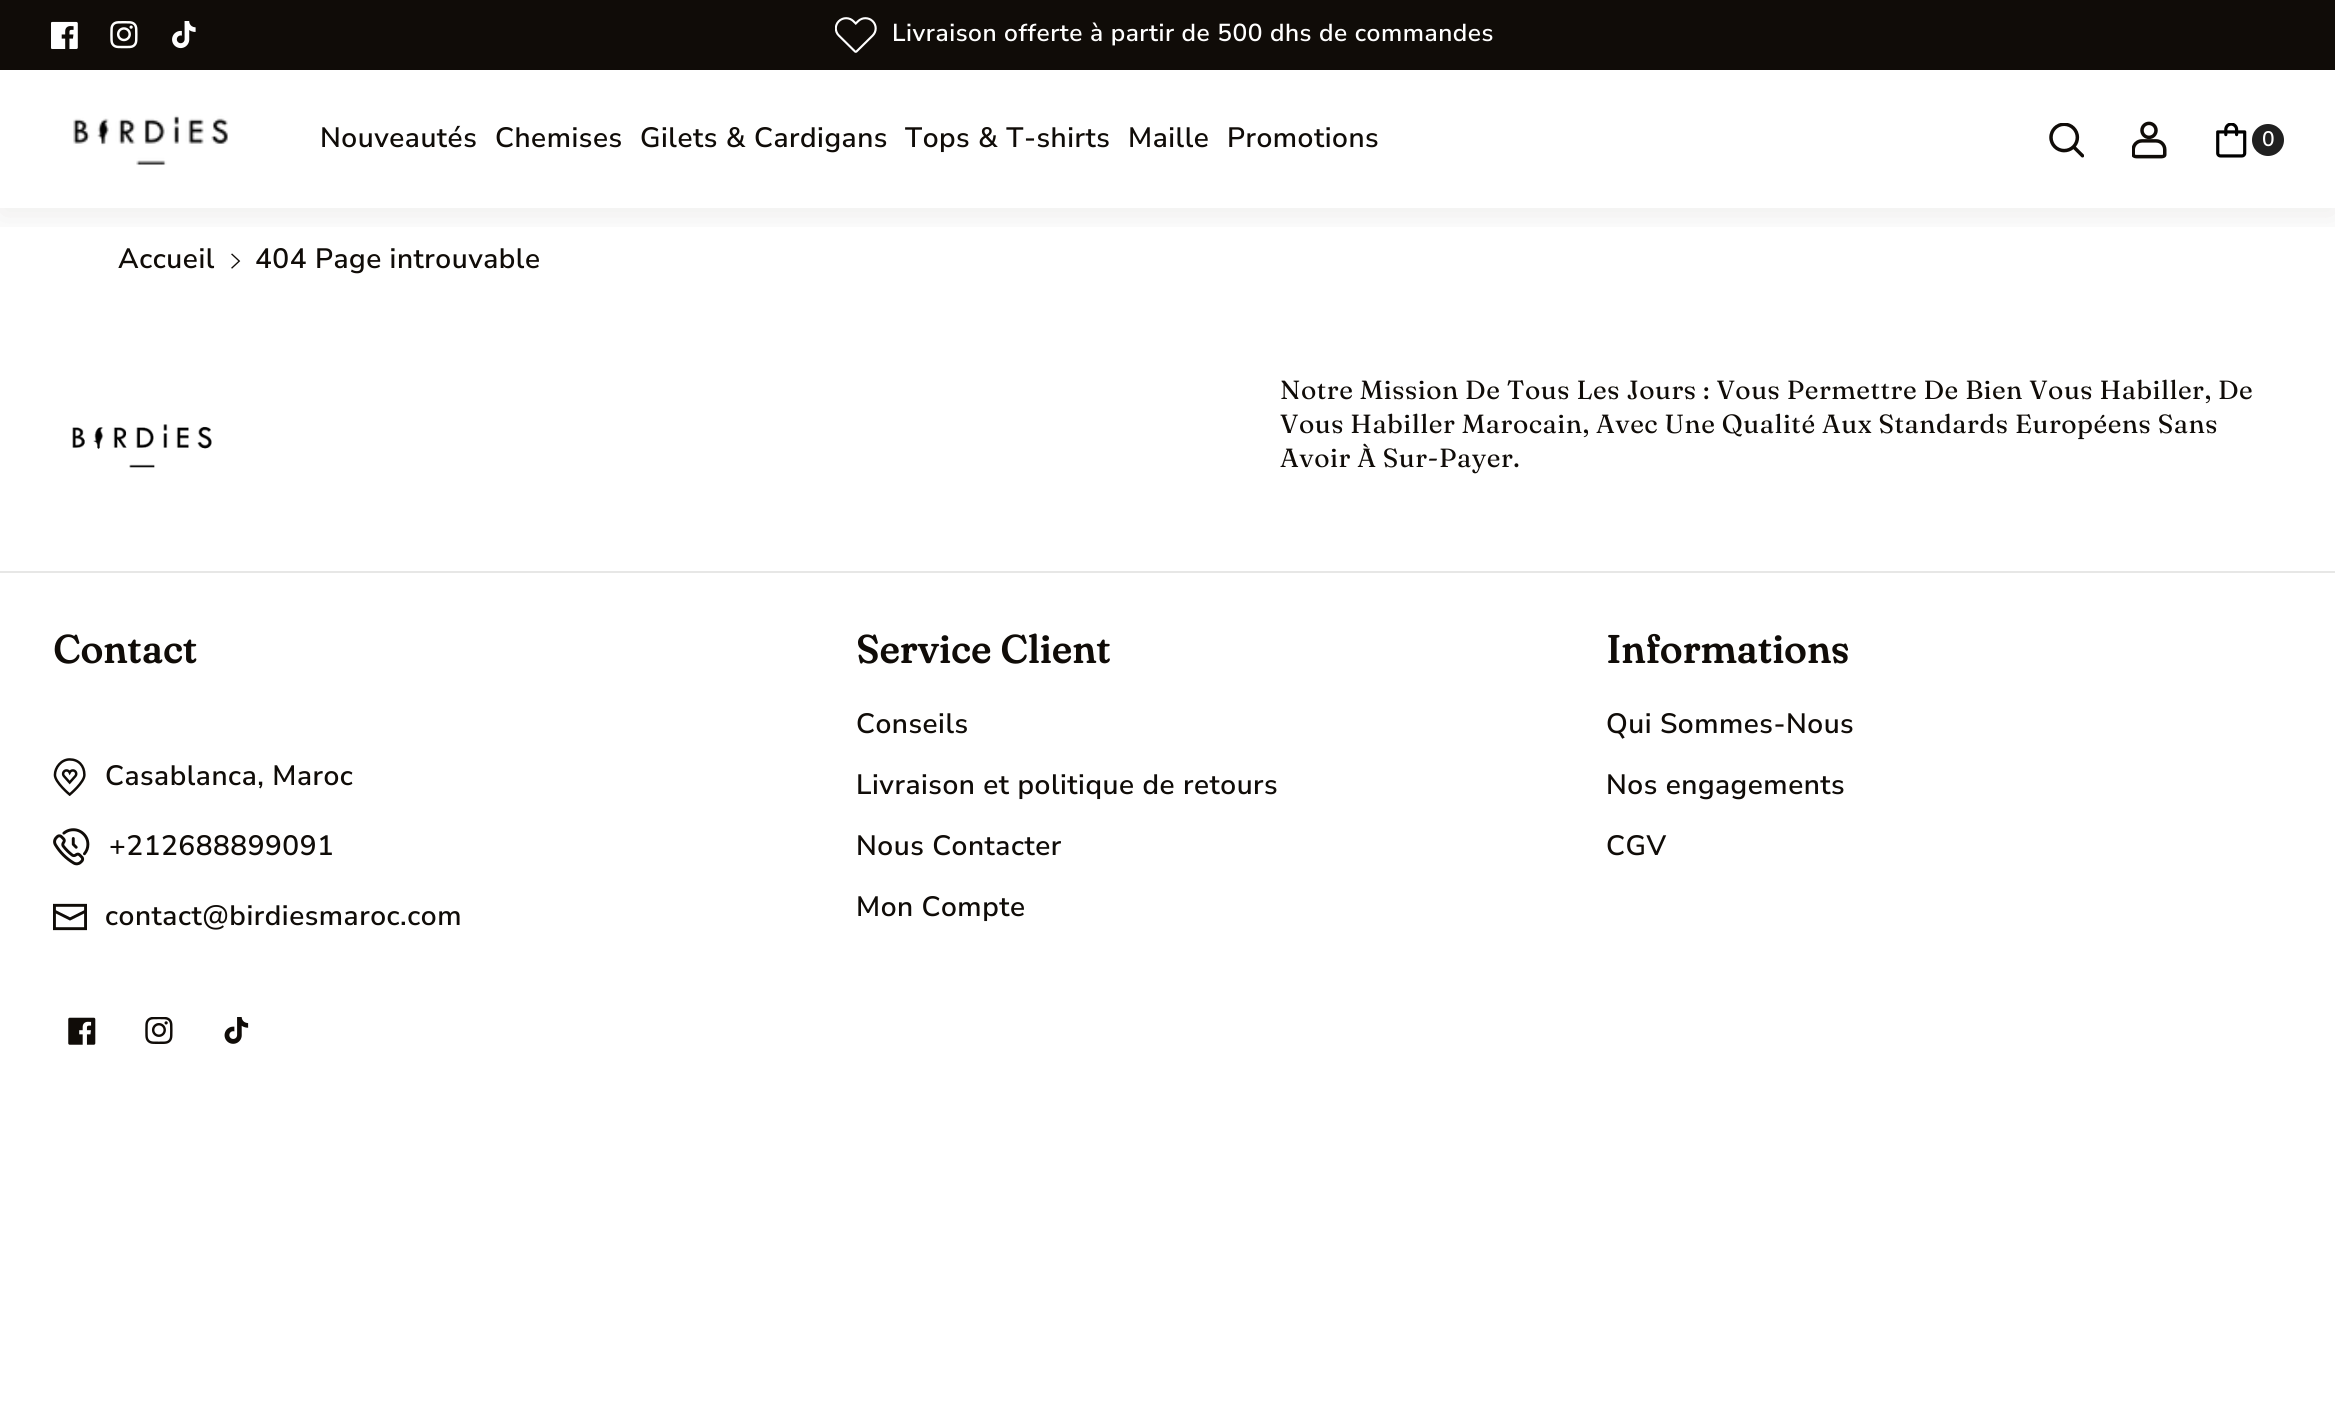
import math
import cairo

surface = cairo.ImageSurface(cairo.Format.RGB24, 2335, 1426)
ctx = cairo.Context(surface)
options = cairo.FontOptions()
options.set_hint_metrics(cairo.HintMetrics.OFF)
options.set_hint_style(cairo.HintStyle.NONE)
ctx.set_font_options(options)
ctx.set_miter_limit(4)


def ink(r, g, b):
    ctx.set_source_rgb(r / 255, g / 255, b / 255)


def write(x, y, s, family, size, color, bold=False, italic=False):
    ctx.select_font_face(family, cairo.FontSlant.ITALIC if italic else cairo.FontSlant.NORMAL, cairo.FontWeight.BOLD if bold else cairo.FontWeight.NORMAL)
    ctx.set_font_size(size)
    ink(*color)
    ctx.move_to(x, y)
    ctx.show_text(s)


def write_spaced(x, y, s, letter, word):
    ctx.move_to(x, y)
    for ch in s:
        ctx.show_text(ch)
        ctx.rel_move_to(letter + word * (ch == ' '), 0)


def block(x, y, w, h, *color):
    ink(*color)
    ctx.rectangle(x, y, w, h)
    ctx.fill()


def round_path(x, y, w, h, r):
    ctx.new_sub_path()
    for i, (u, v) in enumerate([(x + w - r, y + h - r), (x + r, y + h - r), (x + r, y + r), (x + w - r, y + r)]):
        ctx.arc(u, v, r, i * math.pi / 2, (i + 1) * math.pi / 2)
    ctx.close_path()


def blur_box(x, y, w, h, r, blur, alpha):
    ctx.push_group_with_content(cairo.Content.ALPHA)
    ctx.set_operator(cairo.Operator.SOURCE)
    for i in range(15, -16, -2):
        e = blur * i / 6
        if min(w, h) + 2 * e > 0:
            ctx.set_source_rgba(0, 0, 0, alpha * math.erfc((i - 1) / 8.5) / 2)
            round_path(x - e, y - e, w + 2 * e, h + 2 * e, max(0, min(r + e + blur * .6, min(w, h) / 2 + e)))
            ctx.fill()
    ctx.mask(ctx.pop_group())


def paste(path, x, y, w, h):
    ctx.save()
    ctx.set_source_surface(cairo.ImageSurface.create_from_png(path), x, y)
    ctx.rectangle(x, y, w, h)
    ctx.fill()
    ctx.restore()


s1 = dict(family="Nunito Sans SemiBold", size=21, color=(255, 255, 255))

ink(255, 255, 255)
ctx.paint()
paste("pic9.png", 231, 253, 10, 16)
ctx.save()
ctx.rectangle(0, 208, 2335, 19)
ctx.clip()
ink(16, 12, 8)
blur_box(0, 77, 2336, 138, 0, 17.5, 0.08)
ctx.restore()
block(0, 0, 2335, 70, 16, 12, 8)
paste("pic1.png", 51, 21, 27, 28)
paste("pic2.png", 110, 21, 28, 28)
paste("pic3.png", 172, 21, 24, 28)
paste("pic4.png", 835, 17, 42, 36)
ctx.select_font_face("Nunito Sans SemiBold")
ctx.set_font_size(24.5)
ink(255, 255, 255)
write_spaced(892, 41, "Livraison offerte à partir de 500 dhs de commandes", 0.53, 0)
paste("pic5.png", 73, 115, 155, 50)
ctx.set_font_size(28)
ink(16, 12, 8)
write_spaced(320, 147, "Nouveautés", 0.53, 0)
write_spaced(495, 147, "Chemises", 0.53, 0)
write_spaced(640, 147, "Gilets & Cardigans", 0.53, 0)
write_spaced(905, 147, "Tops & T-shirts", 0.53, 0)
write_spaced(1128, 147, "Maille", 0.53, 0)
write_spaced(1227, 147, "Promotions", 0.53, 0)
paste("pic6.png", 2049, 123, 35, 35)
paste("pic7.png", 2132, 121, 35, 38)
paste("pic8.png", 2216, 123, 31, 35)
ink(32, 32, 32)
ctx.arc(2268, 140, 16, 0, 2 * math.pi)
ctx.fill()
write(2262, 146, "0", **s1)
ctx.set_font_size(28)
ink(16, 12, 8)
write_spaced(118, 268, "Accueil", 0.53, 0)
write_spaced(255, 268, "404 Page introuvable", 0.53, 0)
block(0, 571, 2335, 2, 231, 231, 230)
paste("pic10.png", 72, 424, 140, 44)
ctx.select_font_face("Fraunces")
ctx.set_font_size(26.25)
ink(16, 12, 8)
write_spaced(1280, 399, "Notre Mission De Tous Les Jours : Vous Permettre De Bien Vous Habiller, De", 0.53, 0)
write_spaced(1280, 433, "Vous Habiller Marocain, Avec Une Qualité Aux Standards Européens Sans", 0.53, 0)
write_spaced(1280, 467, "Avoir À Sur-Payer.", 0.53, 0)
ctx.select_font_face("Fraunces", cairo.FontSlant.NORMAL, cairo.FontWeight.BOLD)
ctx.set_font_size(38.5)
write_spaced(53, 663, "Contact", 0.53, 0)
paste("pic11.png", 53, 758, 33, 38)
ctx.select_font_face("Nunito Sans SemiBold")
ctx.set_font_size(28)
write_spaced(105, 785, "Casablanca, Maroc", 0.53, 0)
paste("pic12.png", 53, 828, 37, 38)
write_spaced(109, 855, "+212688899091", 0.53, 0)
paste("pic13.png", 53, 903, 34, 28)
write_spaced(105, 925, "contact@birdiesmaroc.com", 0.53, 0)
paste("pic14.png", 68, 1017, 28, 28)
paste("pic15.png", 145, 1017, 28, 27)
paste("pic16.png", 224, 1017, 25, 27)
ctx.select_font_face("Fraunces", cairo.FontSlant.NORMAL, cairo.FontWeight.BOLD)
ctx.set_font_size(38.5)
write_spaced(856, 663, "Service Client", 0.53, 0)
ctx.select_font_face("Nunito Sans SemiBold")
ctx.set_font_size(28)
write_spaced(856, 733, "Conseils", 0.53, 0)
write_spaced(856, 794, "Livraison et politique de retours", 0.53, 0)
write_spaced(856, 855, "Nous Contacter", 0.53, 0)
write_spaced(856, 916, "Mon Compte", 0.53, 0)
ctx.select_font_face("Fraunces", cairo.FontSlant.NORMAL, cairo.FontWeight.BOLD)
ctx.set_font_size(38.5)
write_spaced(1606, 663, "Informations", 0.53, 0)
ctx.select_font_face("Nunito Sans SemiBold")
ctx.set_font_size(28)
write_spaced(1606, 733, "Qui Sommes-Nous", 0.53, 0)
write_spaced(1606, 794, "Nos engagements", 0.53, 0)
write_spaced(1606, 855, "CGV", 0.53, 0)
surface.write_to_png("screenshot.png")
